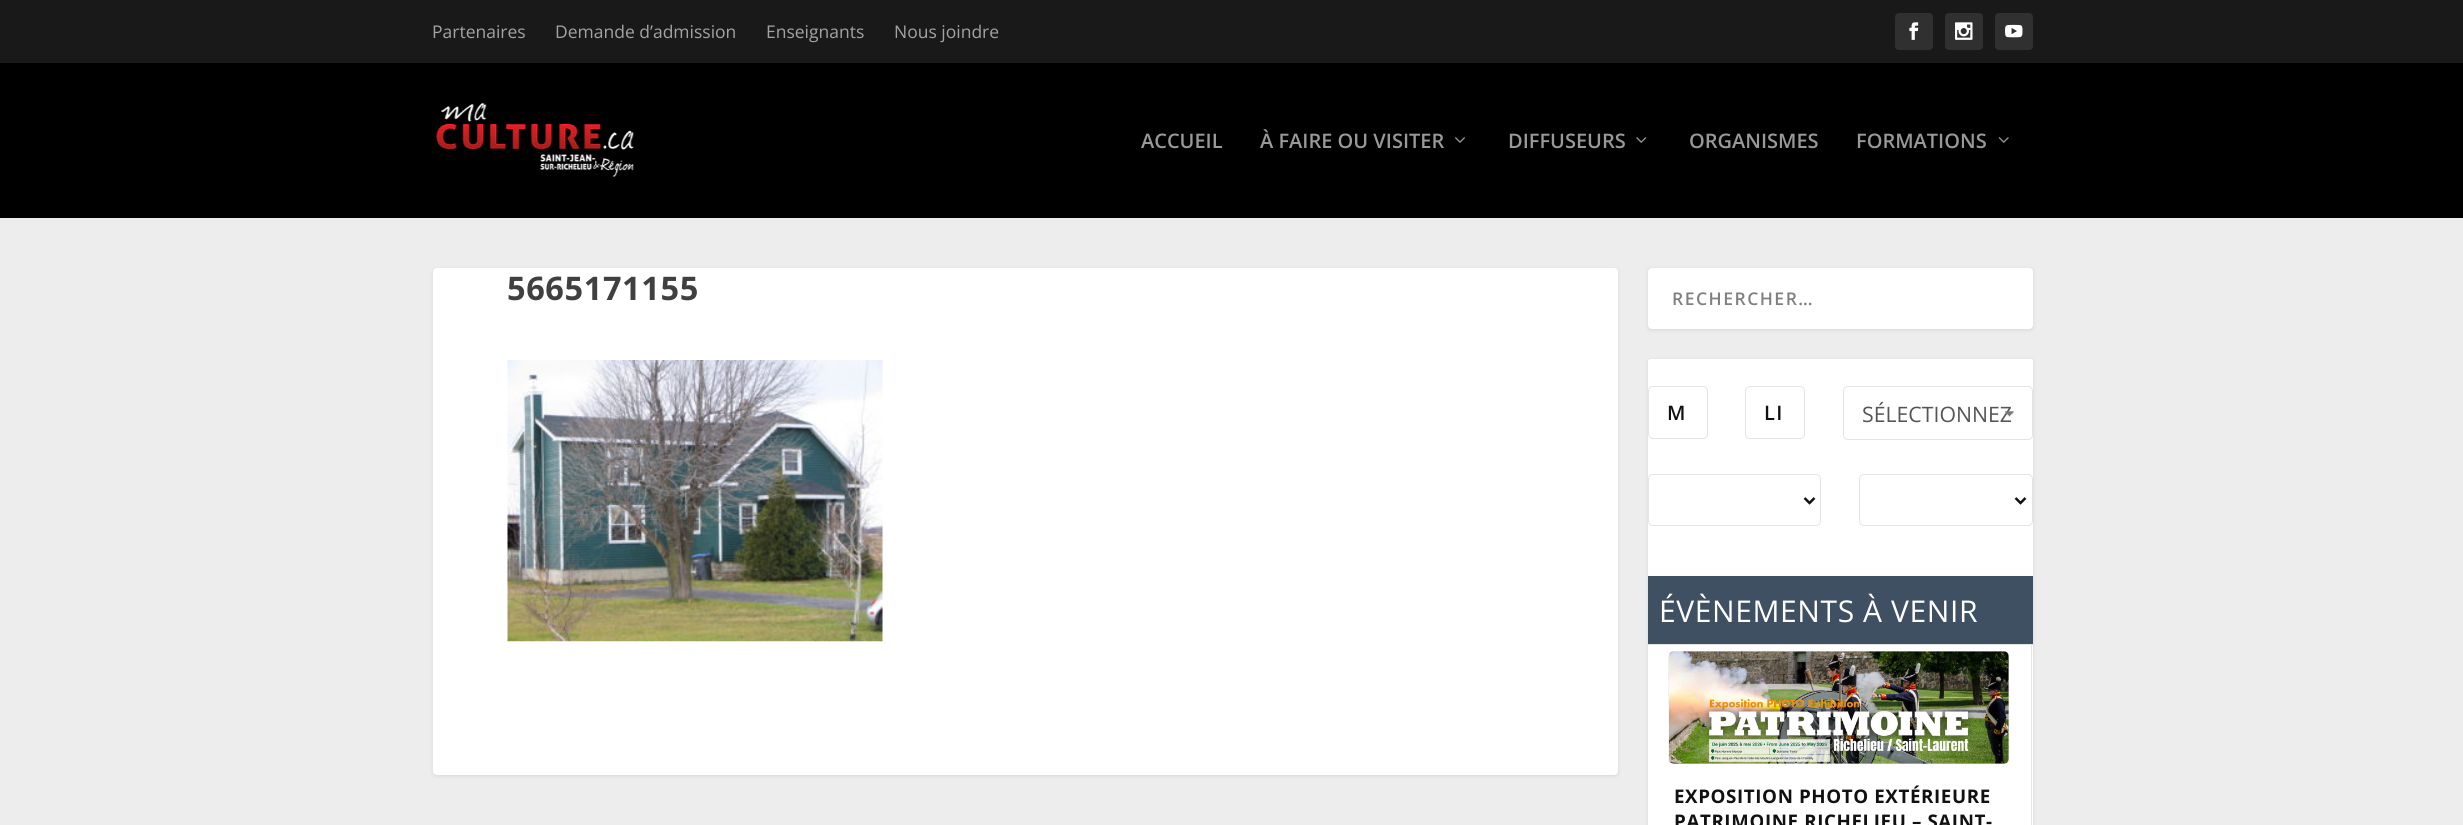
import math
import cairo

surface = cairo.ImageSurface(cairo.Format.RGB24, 2463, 825)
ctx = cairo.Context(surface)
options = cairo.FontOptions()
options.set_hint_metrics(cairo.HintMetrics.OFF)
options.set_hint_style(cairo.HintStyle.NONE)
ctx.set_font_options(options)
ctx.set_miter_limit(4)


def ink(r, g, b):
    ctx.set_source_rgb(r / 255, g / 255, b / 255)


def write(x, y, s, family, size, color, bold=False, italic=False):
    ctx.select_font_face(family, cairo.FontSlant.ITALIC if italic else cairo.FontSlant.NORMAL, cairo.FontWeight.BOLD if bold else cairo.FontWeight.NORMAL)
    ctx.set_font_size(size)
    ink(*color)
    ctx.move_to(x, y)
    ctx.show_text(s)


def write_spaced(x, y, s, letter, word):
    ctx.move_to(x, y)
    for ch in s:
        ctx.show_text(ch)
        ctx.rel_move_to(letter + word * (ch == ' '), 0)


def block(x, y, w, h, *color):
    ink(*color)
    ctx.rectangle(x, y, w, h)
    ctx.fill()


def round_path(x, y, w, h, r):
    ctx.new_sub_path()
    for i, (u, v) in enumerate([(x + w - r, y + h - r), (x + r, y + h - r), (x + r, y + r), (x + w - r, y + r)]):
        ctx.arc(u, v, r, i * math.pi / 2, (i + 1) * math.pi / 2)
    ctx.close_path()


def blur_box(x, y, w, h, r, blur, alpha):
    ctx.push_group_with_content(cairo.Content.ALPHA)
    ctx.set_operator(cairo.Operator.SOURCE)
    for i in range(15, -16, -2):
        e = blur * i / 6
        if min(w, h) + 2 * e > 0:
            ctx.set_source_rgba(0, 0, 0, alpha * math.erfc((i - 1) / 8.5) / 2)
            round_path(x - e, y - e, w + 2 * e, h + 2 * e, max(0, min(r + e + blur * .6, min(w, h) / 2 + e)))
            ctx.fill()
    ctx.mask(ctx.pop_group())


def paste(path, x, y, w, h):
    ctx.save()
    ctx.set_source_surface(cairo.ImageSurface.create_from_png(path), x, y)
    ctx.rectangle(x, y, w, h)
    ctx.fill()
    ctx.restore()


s1 = dict(family="Open Sans", size=17.5, color=(163, 163, 163))
s2 = dict(family="Open Sans SemiBold", size=20, color=(153, 153, 153))
s3 = dict(family="Open Sans", size=21.25, color=(85, 85, 85))

ink(237, 237, 237)
ctx.paint()
block(0, 0, 2463, 63, 25, 25, 25)
write(432, 38, "Partenaires", **s1)
write(555, 38, "Demande d’admission", **s1)
write(766, 38, "Enseignants", **s1)
write(894, 38, "Nous joindre", **s1)
ink(48, 48, 48)
round_path(1895, 13, 38, 37, 4)
ctx.fill()
paste("pic1.png", 1909, 22, 10, 18)
round_path(1945, 13, 38, 37, 4)
ctx.fill()
paste("pic2.png", 1955, 22, 18, 18)
round_path(1995, 13, 38, 37, 4)
ctx.fill()
paste("pic3.png", 2005, 24, 18, 14)
block(0, 63, 2463, 155, 0, 0, 0)
paste("pic4.png", 436, 102, 198, 75)
write(1141, 148, "ACCUEIL", **s2)
write(1260, 148, "À FAIRE OU VISITER", **s2)
paste("pic5.png", 1455, 137, 10, 6)
write(1508, 148, "DIFFUSEURS", **s2)
paste("pic6.png", 1636, 137, 11, 6)
write(1689, 148, "ORGANISMES", **s2)
write(1856, 148, "FORMATIONS", **s2)
paste("pic7.png", 1998, 137, 11, 6)
ink(0, 0, 0)
blur_box(433, 269, 1185, 507, 4, 2, 0.1)
ink(255, 255, 255)
round_path(433, 268, 1185, 507, 4)
ctx.fill()
ctx.select_font_face("Open Sans", cairo.FontSlant.NORMAL, cairo.FontWeight.BOLD)
ctx.set_font_size(32.5)
ink(64, 64, 64)
write_spaced(507, 300, "5665171155", 0.6, 0)
paste("pic8.png", 507, 360, 376, 282)
ink(0, 0, 0)
blur_box(1648, 269, 385, 61, 2.5, 2, 0.1)
ink(255, 255, 255)
round_path(1648, 268, 385, 61, 4)
ctx.fill()
ctx.select_font_face("Open Sans SemiBold")
ctx.set_font_size(17.5)
ink(128, 128, 128)
write_spaced(1672, 305, "RECHERCHER…", 1.5, 0)
ink(0, 0, 0)
blur_box(1648, 360, 385, 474, 2.5, 2, 0.1)
ink(255, 255, 255)
round_path(1648, 359, 385, 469, 2.5)
ctx.fill()
round_path(1648.5, 386.5, 59, 52, 4.5)
ink(228, 228, 228)
ctx.set_line_width(1)
ctx.stroke()
ctx.set_font_size(20)
ink(17, 17, 17)
write_spaced(1667, 420, "M", 1.5, 0)
round_path(1745.5, 386.5, 59, 52, 4.5)
ink(228, 228, 228)
ctx.stroke()
ink(17, 17, 17)
write_spaced(1764, 420, "LI", 1.5, 0)
round_path(1843.5, 386.5, 189, 53, 4.5)
ink(228, 228, 228)
ctx.stroke()
write(1862, 422, "SÉLECTIONNEZ", **s3)
paste("pic9.png", 2004, 411, 10, 6)
round_path(1648.5, 474.5, 172, 51, 4.5)
ink(228, 228, 228)
ctx.stroke()
ctx.new_path()
ctx.move_to(1804.5, 498)
ctx.line_to(1809.5, 503)
ctx.line_to(1814.5, 498)
ink(17, 17, 17)
ctx.set_line_width(2.5)
ctx.stroke()
round_path(1859.5, 474.5, 173, 51, 4.5)
ink(228, 228, 228)
ctx.set_line_width(1)
ctx.stroke()
ctx.new_path()
ctx.move_to(2015.5, 498)
ctx.line_to(2020.5, 503)
ctx.line_to(2025.5, 498)
ink(17, 17, 17)
ctx.set_line_width(2.5)
ctx.stroke()
block(1648, 576, 385, 68, 62, 80, 98)
ctx.set_font_size(30)
ink(255, 255, 255)
write_spaced(1659, 622, "ÉVÈNEMENTS À VENIR", 0.6, 0)
block(1648, 644, 385, 1, 228, 228, 228)
block(2031, 644, 1, 181, 228, 228, 228)
round_path(1669, 651, 340, 113, 5)
ctx.fill()
paste("pic10.png", 1668, 651, 341, 113)
ctx.select_font_face("Open Sans", cairo.FontSlant.NORMAL, cairo.FontWeight.BOLD)
ctx.set_font_size(18.75)
ink(17, 17, 17)
write_spaced(1674, 803, "EXPOSITION PHOTO EXTÉRIEURE", 0.6, 0)
write_spaced(1674, 828, "PATRIMOINE RICHELIEU – SAINT-", 0.6, 0)
surface.write_to_png("screenshot.png")
